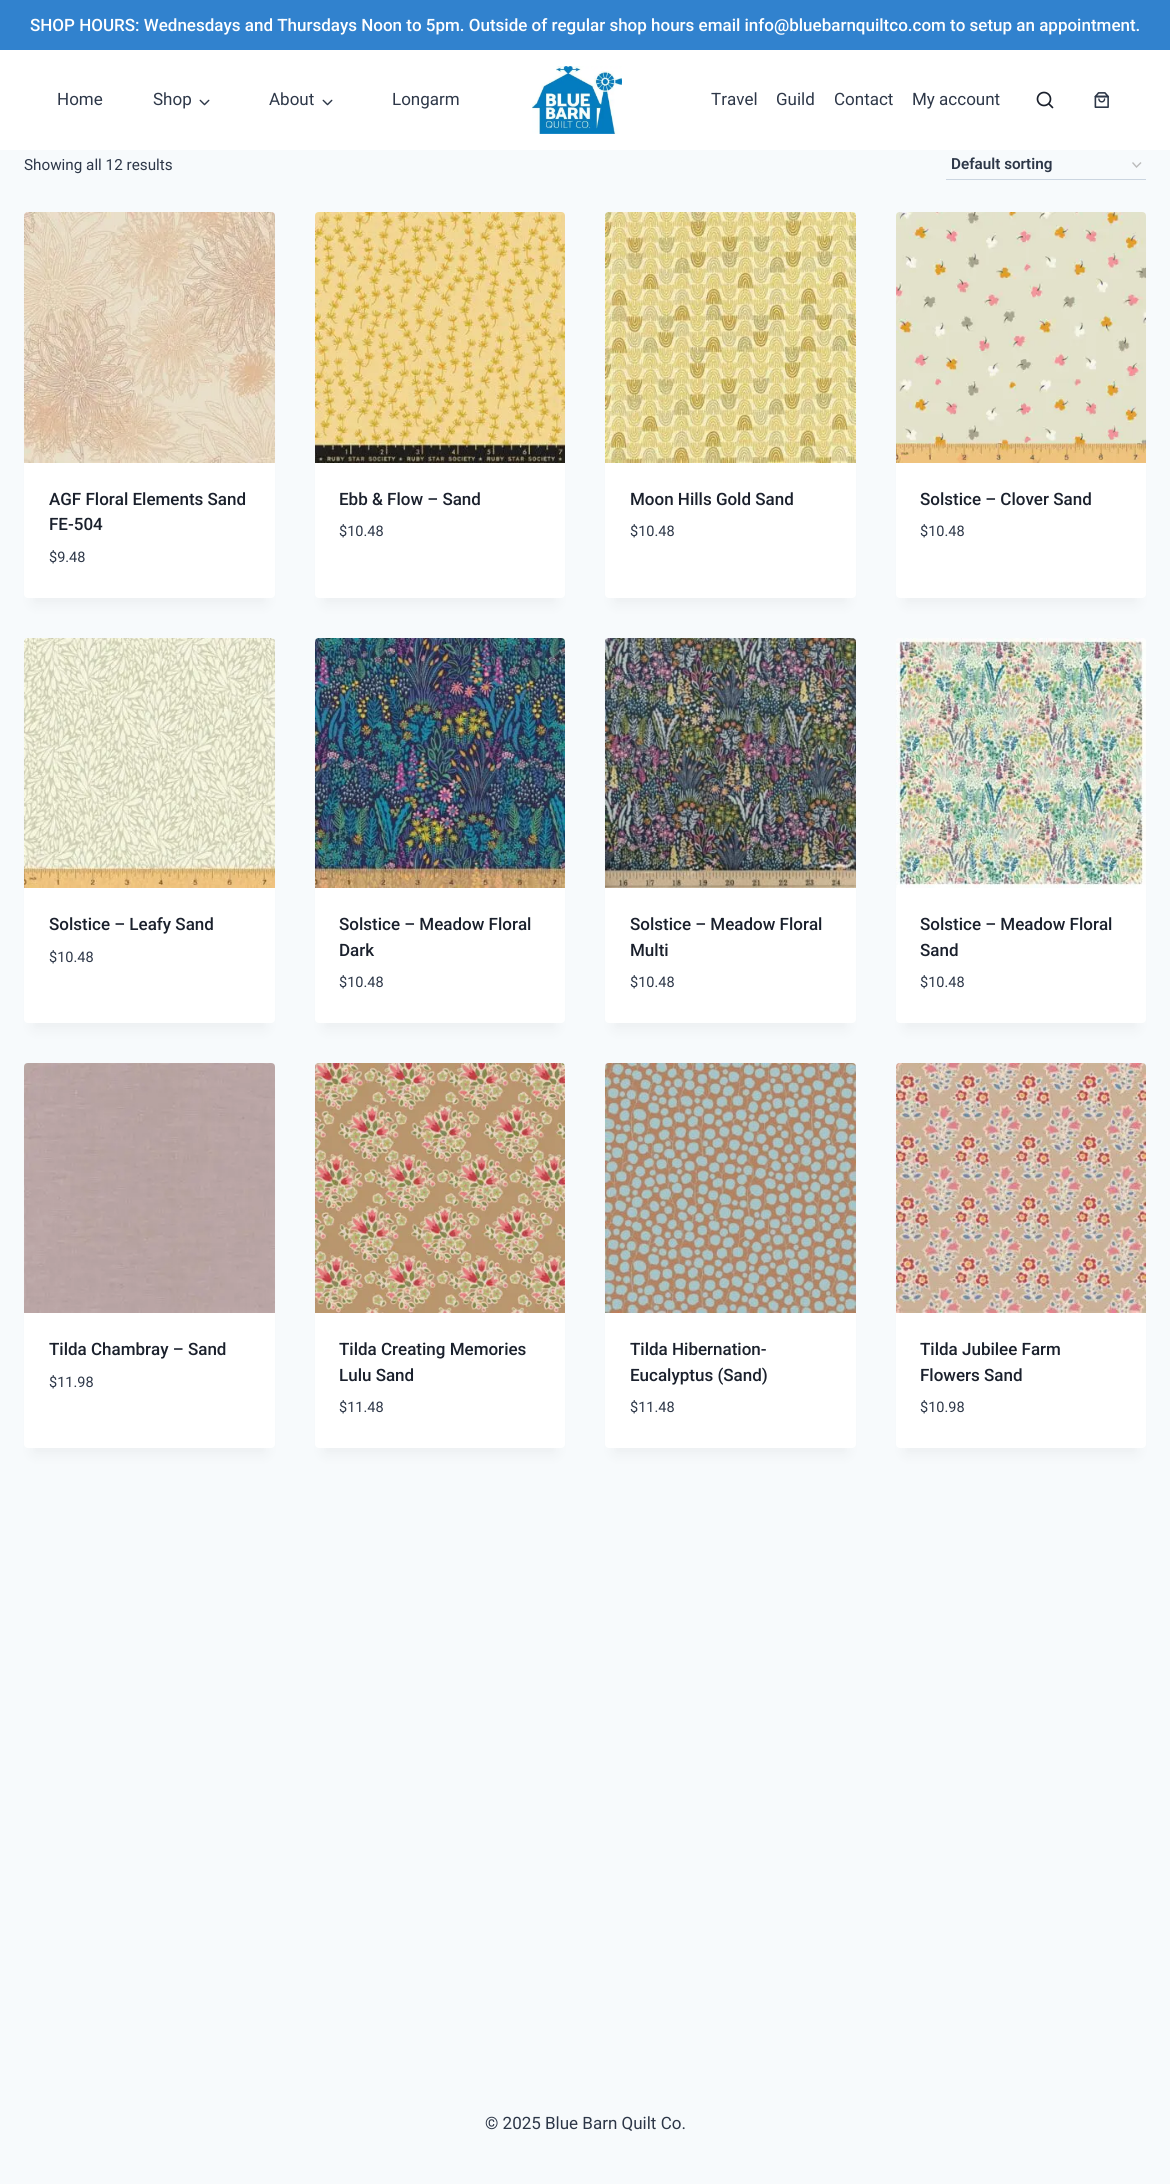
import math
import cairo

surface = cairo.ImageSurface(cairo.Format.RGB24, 1170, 2184)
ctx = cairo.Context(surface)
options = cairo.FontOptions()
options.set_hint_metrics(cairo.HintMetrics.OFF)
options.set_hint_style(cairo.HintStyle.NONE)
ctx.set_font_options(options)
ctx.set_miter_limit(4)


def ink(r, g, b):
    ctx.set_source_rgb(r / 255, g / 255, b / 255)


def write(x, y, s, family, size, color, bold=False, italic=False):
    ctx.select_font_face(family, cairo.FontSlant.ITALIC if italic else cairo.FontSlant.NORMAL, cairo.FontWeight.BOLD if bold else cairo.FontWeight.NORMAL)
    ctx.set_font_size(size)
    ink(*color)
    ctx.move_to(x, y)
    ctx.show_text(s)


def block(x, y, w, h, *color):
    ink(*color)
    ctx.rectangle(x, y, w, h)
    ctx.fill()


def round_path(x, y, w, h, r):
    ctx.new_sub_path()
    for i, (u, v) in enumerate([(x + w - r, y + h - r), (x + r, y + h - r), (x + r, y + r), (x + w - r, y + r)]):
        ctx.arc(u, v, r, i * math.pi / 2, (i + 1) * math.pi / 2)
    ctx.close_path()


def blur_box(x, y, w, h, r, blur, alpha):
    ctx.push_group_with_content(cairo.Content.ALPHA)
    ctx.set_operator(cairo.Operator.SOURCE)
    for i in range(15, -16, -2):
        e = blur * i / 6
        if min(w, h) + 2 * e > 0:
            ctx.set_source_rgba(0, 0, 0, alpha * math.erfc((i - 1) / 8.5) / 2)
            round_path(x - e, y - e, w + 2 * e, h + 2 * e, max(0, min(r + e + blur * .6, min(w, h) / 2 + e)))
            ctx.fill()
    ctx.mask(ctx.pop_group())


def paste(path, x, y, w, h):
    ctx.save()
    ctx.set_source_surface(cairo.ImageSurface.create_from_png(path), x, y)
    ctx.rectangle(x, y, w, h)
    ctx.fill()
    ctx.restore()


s1 = dict(family="Roboto Medium", size=17, color=(255, 255, 255))
s2 = dict(family="Roboto", size=17, color=(45, 55, 72))
s3 = dict(family="Roboto", size=15.25, color=(45, 55, 72))
s4 = dict(family="Roboto SemiBold", size=15.25, color=(45, 55, 72))
s5 = dict(family="Roboto Medium", size=17, color=(26, 32, 44))
s6 = dict(family="Roboto", size=14.5, color=(45, 55, 72))

ink(247, 250, 252)
ctx.paint()
block(0, 0, 1170, 50, 49, 130, 206)
write(30, 31, "SHOP HOURS: Wednesdays and Thursdays Noon to 5pm. Outside of regular shop hours email info@bluebarnquiltco.com to setup an appointment.", **s1)
block(0, 50, 1170, 100, 255, 255, 255)
write(57, 105, "Home", **s2)
write(153, 105, "Shop", **s2)
paste("pic1.png", 199, 99, 11, 7)
write(269, 105, "About", **s2)
paste("pic1.png", 322, 99, 11, 7)
write(392, 105, "Longarm", **s2)
paste("pic2.png", 532, 66, 90, 68)
write(711, 105, "Travel", **s2)
write(776, 105, "Guild", **s2)
write(834, 105, "Contact", **s2)
write(912, 105, "My account", **s2)
ctx.new_path()
ctx.arc(1044, 99, 6.5, 0, 2 * math.pi)
ink(26, 32, 44)
ctx.set_line_width(1.7)
ctx.stroke()
ctx.new_path()
ctx.move_to(1052.5, 107.5)
ctx.line_to(1049, 104)
ctx.set_line_cap(cairo.LineCap.ROUND)
ctx.set_line_join(cairo.LineJoin.ROUND)
ctx.stroke()
paste("pic3.png", 1094, 92, 15, 16)
write(24, 170, "Showing all 12 results", **s3)
ctx.new_path()
ctx.move_to(1132.5, 162.5)
ctx.line_to(1136.5, 167)
ctx.line_to(1141, 162.5)
ink(187, 187, 187)
ctx.set_line_width(1.4)
ctx.set_line_cap(cairo.LineCap.BUTT)
ctx.set_line_join(cairo.LineJoin.MITER)
ctx.stroke()
block(946, 179, 200, 1, 203, 213, 224)
write(951, 169, "Default sorting", **s4)
ink(0, 0, 0)
blur_box(34, 237, 231, 366, 0, 7.5, 0.05)
ink(255, 255, 255)
round_path(24, 212, 251, 386, 4)
ctx.fill()
paste("pic4.png", 24, 212, 251, 251)
write(49, 505, "AGF Floral Elements Sand", **s5)
write(49, 530, "FE-504", **s5)
write(49, 562, "$9.48", **s6)
ink(0, 0, 0)
blur_box(325, 237, 230, 366, 0, 7.5, 0.05)
ink(255, 255, 255)
round_path(315, 212, 250, 386, 4)
ctx.fill()
paste("pic5.png", 315, 212, 250, 251)
write(339, 505, "Ebb & Flow – Sand", **s5)
write(339, 536, "$10.48", **s6)
ink(0, 0, 0)
blur_box(615, 237, 231, 366, 0, 7.5, 0.05)
ink(255, 255, 255)
round_path(605, 212, 251, 386, 4)
ctx.fill()
paste("pic6.png", 605, 212, 251, 251)
write(630, 505, "Moon Hills Gold Sand", **s5)
write(630, 536, "$10.48", **s6)
ink(0, 0, 0)
blur_box(906, 237, 230, 366, 0, 7.5, 0.05)
ink(255, 255, 255)
round_path(896, 212, 250, 386, 4)
ctx.fill()
paste("pic7.png", 896, 212, 250, 251)
write(920, 505, "Solstice – Clover Sand", **s5)
write(920, 536, "$10.48", **s6)
ink(0, 0, 0)
blur_box(34, 663, 231, 365, 0, 7.5, 0.05)
ink(255, 255, 255)
round_path(24, 638, 251, 385, 4)
ctx.fill()
paste("pic8.png", 24, 638, 251, 250)
write(49, 930, "Solstice – Leafy Sand", **s5)
write(49, 962, "$10.48", **s6)
ink(0, 0, 0)
blur_box(325, 663, 230, 365, 0, 7.5, 0.05)
ink(255, 255, 255)
round_path(315, 638, 250, 385, 4)
ctx.fill()
paste("pic9.png", 315, 638, 250, 250)
write(339, 930, "Solstice – Meadow Floral", **s5)
write(339, 956, "Dark", **s5)
write(339, 987, "$10.48", **s6)
ink(0, 0, 0)
blur_box(615, 663, 231, 365, 0, 7.5, 0.05)
ink(255, 255, 255)
round_path(605, 638, 251, 385, 4)
ctx.fill()
paste("pic10.png", 605, 638, 251, 250)
write(630, 930, "Solstice – Meadow Floral", **s5)
write(630, 956, "Multi", **s5)
write(630, 987, "$10.48", **s6)
ink(0, 0, 0)
blur_box(906, 663, 230, 365, 0, 7.5, 0.05)
ink(255, 255, 255)
round_path(896, 638, 250, 385, 4)
ctx.fill()
paste("pic11.png", 896, 638, 250, 250)
write(920, 930, "Solstice – Meadow Floral", **s5)
write(920, 956, "Sand", **s5)
write(920, 987, "$10.48", **s6)
ink(0, 0, 0)
blur_box(34, 1088, 231, 365, 0, 7.5, 0.05)
ink(255, 255, 255)
round_path(24, 1063, 251, 385, 4)
ctx.fill()
paste("pic12.png", 24, 1063, 251, 250)
write(49, 1355, "Tilda Chambray – Sand", **s5)
write(49, 1387, "$11.98", **s6)
ink(0, 0, 0)
blur_box(325, 1088, 230, 365, 0, 7.5, 0.05)
ink(255, 255, 255)
round_path(315, 1063, 250, 385, 4)
ctx.fill()
paste("pic13.png", 315, 1063, 250, 250)
write(339, 1355, "Tilda Creating Memories", **s5)
write(339, 1381, "Lulu Sand", **s5)
write(339, 1412, "$11.48", **s6)
ink(0, 0, 0)
blur_box(615, 1088, 231, 365, 0, 7.5, 0.05)
ink(255, 255, 255)
round_path(605, 1063, 251, 385, 4)
ctx.fill()
paste("pic14.png", 605, 1063, 251, 250)
write(630, 1355, "Tilda Hibernation-", **s5)
write(630, 1381, "Eucalyptus (Sand)", **s5)
write(630, 1412, "$11.48", **s6)
ink(0, 0, 0)
blur_box(906, 1088, 230, 365, 0, 7.5, 0.05)
ink(255, 255, 255)
round_path(896, 1063, 250, 385, 4)
ctx.fill()
paste("pic15.png", 896, 1063, 250, 250)
write(920, 1355, "Tilda Jubilee Farm", **s5)
write(920, 1381, "Flowers Sand", **s5)
write(920, 1412, "$10.98", **s6)
write(485, 2129, "© 2025 Blue Barn Quilt Co.", **s2)
surface.write_to_png("screenshot.png")
